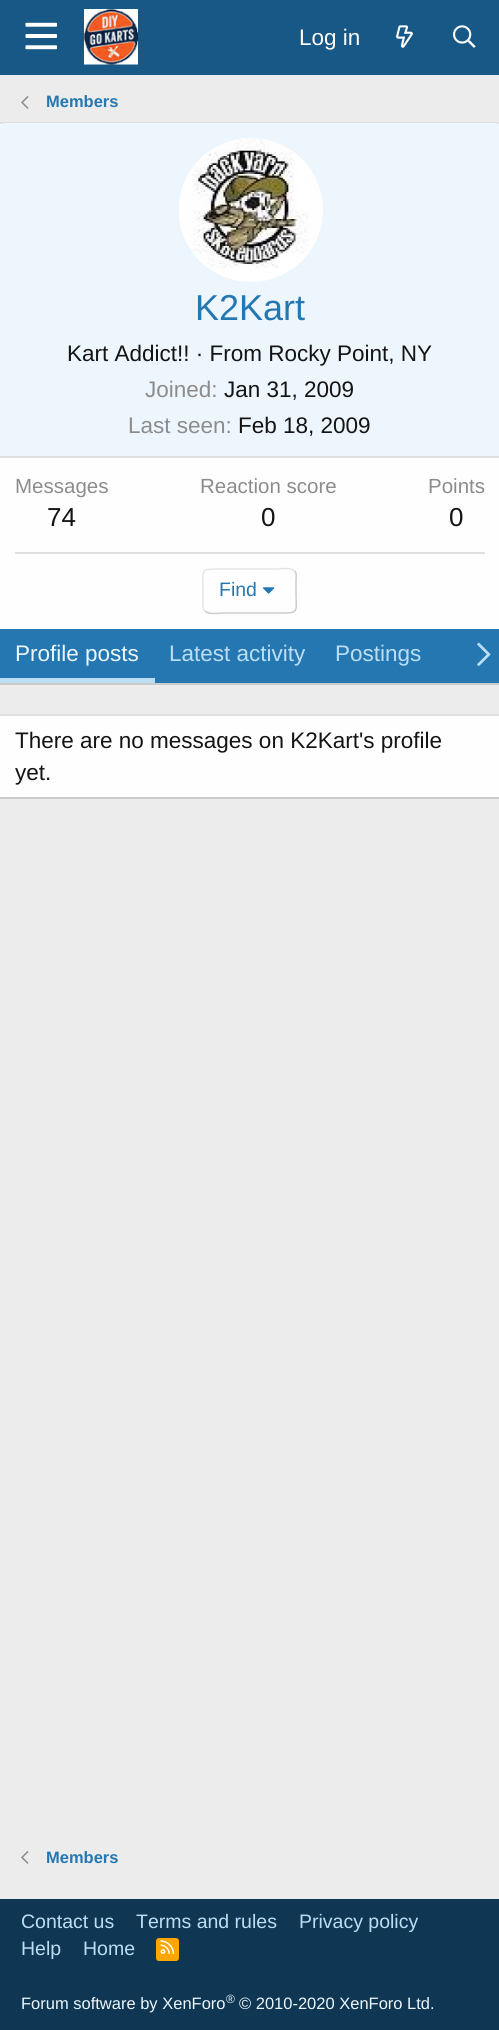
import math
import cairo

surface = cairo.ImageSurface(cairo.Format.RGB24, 499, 2030)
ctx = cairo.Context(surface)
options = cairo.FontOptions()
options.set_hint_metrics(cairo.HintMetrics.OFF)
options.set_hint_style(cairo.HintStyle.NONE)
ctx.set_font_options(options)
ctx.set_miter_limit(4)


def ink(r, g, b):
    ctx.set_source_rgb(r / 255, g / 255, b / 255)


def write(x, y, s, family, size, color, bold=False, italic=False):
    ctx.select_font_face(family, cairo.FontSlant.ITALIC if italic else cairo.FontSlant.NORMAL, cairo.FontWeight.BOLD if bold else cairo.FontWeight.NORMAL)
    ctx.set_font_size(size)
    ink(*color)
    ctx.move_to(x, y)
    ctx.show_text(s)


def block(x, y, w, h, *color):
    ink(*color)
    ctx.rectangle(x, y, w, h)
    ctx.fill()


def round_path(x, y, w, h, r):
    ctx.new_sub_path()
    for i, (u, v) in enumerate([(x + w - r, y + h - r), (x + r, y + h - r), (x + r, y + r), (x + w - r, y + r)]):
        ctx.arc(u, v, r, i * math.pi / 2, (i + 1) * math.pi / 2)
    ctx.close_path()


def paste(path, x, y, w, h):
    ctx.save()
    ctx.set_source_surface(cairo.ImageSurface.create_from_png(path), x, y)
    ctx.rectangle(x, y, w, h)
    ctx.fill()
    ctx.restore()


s1 = dict(family="Liberation Sans", size=22.5, color=(254, 254, 254))
s2 = dict(family="Liberation Sans", size=16.5, color=(37, 119, 177), bold=True)
s3 = dict(family="Liberation Sans", size=36, color=(37, 119, 177))
s4 = dict(family="Liberation Sans", size=22.5, color=(20, 20, 20))
s5 = dict(family="Liberation Sans", size=22.5, color=(140, 140, 140))
s6 = dict(family="Liberation Sans", size=20.5, color=(140, 140, 140))
s7 = dict(family="Liberation Sans", size=26, color=(20, 20, 20))
s8 = dict(family="Liberation Sans", size=19.5, color=(37, 119, 177))
s9 = dict(family="Liberation Sans", size=22.5, color=(237, 246, 253))
s10 = dict(family="Liberation Sans", size=22.5, color=(188, 222, 245))
s11 = dict(family="Liberation Sans", size=19.5, color=(188, 222, 245))
s12 = dict(family="Liberation Sans", size=16.5, color=(237, 246, 253))
s13 = dict(family="Liberation Sans", size=12, color=(237, 246, 253))

ink(236, 236, 236)
ctx.paint()
block(0, 0, 499, 75, 24, 88, 134)
paste("pic1.png", 25, 22, 32, 28)
paste("pic2.png", 84, 9, 54, 56)
write(299, 45, "Log in", **s1)
paste("pic3.png", 396, 25, 17, 23)
paste("pic4.png", 453, 25, 23, 23)
paste("pic5.png", 21, 96, 8, 13)
write(46, 107, "Members", **s2)
block(0, 124, 499, 505, 254, 254, 254)
block(0, 122, 499, 2, 223, 223, 223)
block(0, 683, 499, 2, 203, 203, 203)
ink(237, 246, 253)
ctx.new_path()
ctx.move_to(5, 123)
ctx.line_to(495, 123)
ctx.curve_to(498, 123, 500, 125, 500, 128)
ctx.line_to(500, 458)
ctx.line_to(0, 458)
ctx.line_to(0, 128)
ctx.curve_to(0, 125, 2, 123, 5, 123)
ctx.close_path()
ctx.fill()
block(0, 456, 499, 2, 223, 223, 223)
ink(254, 254, 254)
ctx.arc(251, 210, 72, 0, 2 * math.pi)
ctx.fill()
paste("pic6.png", 179, 138, 130, 141)
write(195, 320, "K2Kart", **s3)
write(67, 361, "Kart Addict!! · From Rocky Point, NY", **s4)
write(145, 397, "Joined:", **s5)
write(224, 397, "Jan 31, 2009", **s4)
write(128, 433, "Last seen:", **s5)
write(238, 433, "Feb 18, 2009", **s4)
write(15, 493, "Messages", **s6)
write(47, 526, "74", **s7)
write(200, 493, "Reaction score", **s6)
write(261, 526, "0", **s7)
write(428, 493, "Points", **s6)
write(449, 526, "0", **s7)
block(15, 552, 470, 2, 223, 223, 223)
ctx.new_path()
ctx.move_to(294.5, 571)
ctx.curve_to(297, 573, 296, 577, 296, 580)
ctx.line_to(296, 591)
ctx.curve_to(296, 614, 300, 613, 277, 613)
ctx.line_to(222, 613)
ctx.curve_to(221.5, 613, 208.5, 615, 205, 611)
ink(203, 203, 203)
ctx.set_line_width(1.5)
ctx.stroke()
ctx.new_path()
ctx.move_to(205, 611)
ctx.curve_to(202.5, 609, 203, 605, 203, 602)
ctx.line_to(203, 591)
ctx.curve_to(203, 568, 199.5, 569, 222, 569)
ctx.line_to(277, 569)
ctx.curve_to(278, 569, 291, 567, 294.5, 571)
ink(229, 229, 229)
ctx.stroke()
write(219, 596, "Find", **s8)
paste("pic7.png", 263, 587, 12, 7)
block(0, 629, 460, 54, 37, 119, 177)
block(0, 678, 155, 5, 188, 222, 245)
write(15, 661, "Profile posts", **s9)
write(169, 661, "Latest activity", **s10)
write(335, 661, "Postings", **s10)
gradient = cairo.LinearGradient(440, 656, 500, 656)
gradient.add_color_stop_rgba(0, 0.145, 0.467, 0.694, 0)
gradient.add_color_stop_rgba(0.33, 0.145, 0.467, 0.694, 1)
ctx.set_source(gradient)
ctx.rectangle(460, 629, 39, 54)
ctx.fill()
paste("pic8.png", 477, 642, 14, 24)
block(0, 716, 499, 81, 254, 254, 254)
block(0, 714, 499, 2, 223, 223, 223)
block(0, 797, 499, 2, 203, 203, 203)
write(15, 748, "There are no messages on K2Kart's profile", **s4)
write(15, 780, "yet.", **s4)
paste("pic5.png", 21, 1851, 8, 13)
write(46, 1863, "Members", **s2)
block(0, 1899, 499, 131, 15, 54, 82)
write(21, 1928, "Contact us", **s11)
write(136, 1928, "Terms and rules", **s11)
write(299, 1928, "Privacy policy", **s11)
write(21, 1955, "Help", **s11)
write(83, 1955, "Home", **s11)
ink(255, 165, 0)
round_path(156, 1938, 23, 23, 3)
ctx.fill()
paste("pic9.png", 160, 1940, 15, 14)
write(21, 2009, "Forum software by XenForo", **s12)
write(226, 2003, "®", **s13)
write(239, 2009, "© 2010-2020 XenForo Ltd.", **s12)
surface.write_to_png("screenshot.png")
